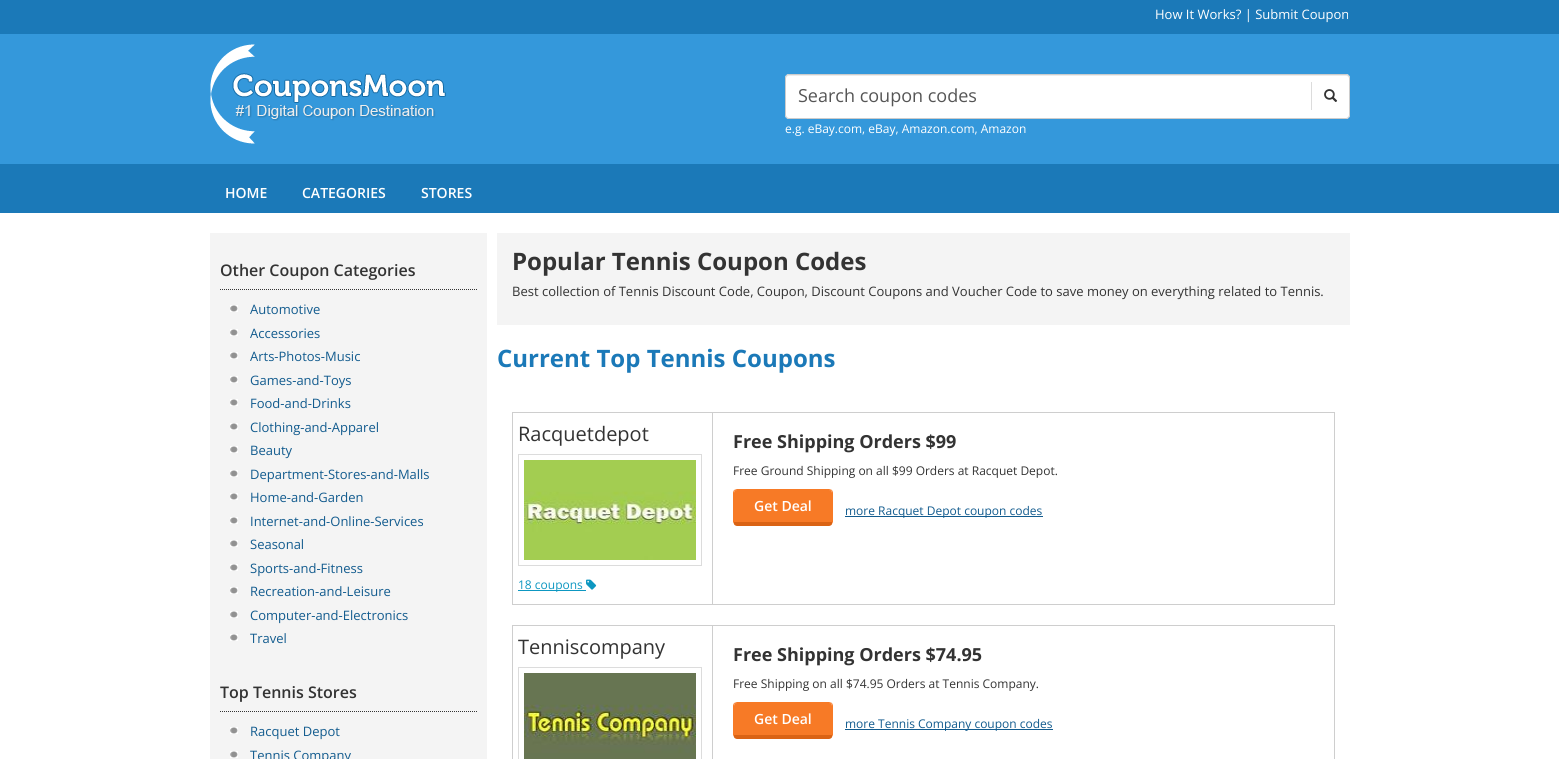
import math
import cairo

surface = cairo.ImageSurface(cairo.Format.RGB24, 1559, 759)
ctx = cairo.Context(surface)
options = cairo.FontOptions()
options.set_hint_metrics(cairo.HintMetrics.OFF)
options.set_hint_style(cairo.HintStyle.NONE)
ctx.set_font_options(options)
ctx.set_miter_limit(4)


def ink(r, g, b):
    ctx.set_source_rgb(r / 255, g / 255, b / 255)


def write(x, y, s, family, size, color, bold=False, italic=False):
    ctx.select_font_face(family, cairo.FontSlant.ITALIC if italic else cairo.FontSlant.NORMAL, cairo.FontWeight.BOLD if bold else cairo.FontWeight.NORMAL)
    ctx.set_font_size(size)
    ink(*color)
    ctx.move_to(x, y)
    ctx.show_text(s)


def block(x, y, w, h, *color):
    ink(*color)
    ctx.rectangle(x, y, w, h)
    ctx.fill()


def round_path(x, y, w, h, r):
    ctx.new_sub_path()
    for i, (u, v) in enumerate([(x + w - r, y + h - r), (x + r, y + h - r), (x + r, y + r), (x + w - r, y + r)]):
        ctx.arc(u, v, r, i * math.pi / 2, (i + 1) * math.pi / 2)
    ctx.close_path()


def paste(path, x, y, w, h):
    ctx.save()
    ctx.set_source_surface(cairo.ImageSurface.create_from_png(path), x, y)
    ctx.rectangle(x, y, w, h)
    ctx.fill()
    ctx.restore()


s1 = dict(family="Open Sans", size=13, color=(255, 255, 255))
s2 = dict(family="Open Sans", size=18, color=(85, 85, 85))
s3 = dict(family="Open Sans", size=12, color=(255, 255, 255))
s4 = dict(family="Open Sans SemiBold", size=14, color=(255, 255, 255))
s5 = dict(family="Open Sans SemiBold", size=16, color=(51, 51, 51))
s6 = dict(family="Open Sans", size=13, color=(18, 91, 142))
s7 = dict(family="Open Sans", size=24, color=(51, 51, 51), bold=True)
s8 = dict(family="Open Sans", size=13, color=(51, 51, 51))
s9 = dict(family="Open Sans", size=24, color=(27, 121, 184), bold=True)
s10 = dict(family="Open Sans", size=20, color=(51, 51, 51))
s11 = dict(family="Open Sans", size=12, color=(13, 151, 193))
s12 = dict(family="Open Sans", size=18, color=(51, 51, 51), bold=True)
s13 = dict(family="Open Sans", size=12, color=(51, 51, 51))
s14 = dict(family="Open Sans", size=12, color=(18, 91, 142))

ink(255, 255, 255)
ctx.paint()
block(0, 0, 1559, 34, 27, 121, 184)
write(1155, 19, "How It Works? | Submit Coupon", **s1)
block(0, 34, 1559, 130, 52, 152, 219)
paste("pic1.png", 210, 44, 236, 100)
ink(255, 255, 255)
round_path(785, 74, 565, 45, 4)
ctx.fill()
ink(236, 236, 236)
ctx.new_path()
ctx.move_to(789, 76)
ctx.line_to(1346, 76)
ctx.curve_to(1348, 76, 1349, 77, 1349, 79)
ctx.line_to(1349, 78)
ctx.curve_to(1349, 76, 1348, 75, 1346, 75)
ctx.line_to(789, 75)
ctx.curve_to(787, 75, 786, 76, 786, 78)
ctx.line_to(786, 79)
ctx.curve_to(786, 77, 787, 76, 789, 76)
ctx.close_path()
ctx.fill()
round_path(785.5, 74.5, 564, 44, 3.5)
ink(204, 204, 204)
ctx.set_line_width(1)
ctx.stroke()
write(798, 102, "Search coupon codes", **s2)
block(1311, 82, 1, 28, 220, 220, 220)
paste("pic2.png", 1324, 89, 14, 13)
write(785, 133, "e.g. eBay.com, eBay, Amazon.com, Amazon", **s3)
block(0, 164, 1559, 49, 27, 121, 184)
write(225, 198, "HOME", **s4)
write(302, 198, "CATEGORIES", **s4)
write(421, 198, "STORES", **s4)
block(210, 233, 277, 526, 244, 244, 244)
ctx.new_path()
ctx.move_to(220, 289.5)
ctx.line_to(477, 289.5)
ink(51, 51, 51)
ctx.set_dash([1, 1])
ctx.stroke()
write(220, 276, "Other Coupon Categories", **s5)
paste("pic3.png", 230, 305, 8, 7)
write(250, 314, "Automotive", **s6)
paste("pic3.png", 230, 329, 8, 7)
write(250, 338, "Accessories", **s6)
paste("pic3.png", 230, 352, 8, 7)
write(250, 361, "Arts-Photos-Music", **s6)
paste("pic3.png", 230, 376, 8, 7)
write(250, 385, "Games-and-Toys", **s6)
paste("pic3.png", 230, 399, 8, 7)
write(250, 408, "Food-and-Drinks", **s6)
paste("pic3.png", 230, 423, 8, 7)
write(250, 432, "Clothing-and-Apparel", **s6)
paste("pic3.png", 230, 446, 8, 7)
write(250, 455, "Beauty", **s6)
paste("pic3.png", 230, 470, 8, 7)
write(250, 479, "Department-Stores-and-Malls", **s6)
paste("pic3.png", 230, 493, 8, 7)
write(250, 502, "Home-and-Garden", **s6)
paste("pic3.png", 230, 517, 8, 7)
write(250, 526, "Internet-and-Online-Services", **s6)
paste("pic3.png", 230, 540, 8, 7)
write(250, 549, "Seasonal", **s6)
paste("pic3.png", 230, 564, 8, 7)
write(250, 573, "Sports-and-Fitness", **s6)
paste("pic3.png", 230, 587, 8, 7)
write(250, 596, "Recreation-and-Leisure", **s6)
paste("pic3.png", 230, 611, 8, 7)
write(250, 620, "Computer-and-Electronics", **s6)
paste("pic3.png", 230, 634, 8, 7)
write(250, 643, "Travel", **s6)
ctx.new_path()
ctx.move_to(220, 711.5)
ctx.line_to(477, 711.5)
ink(51, 51, 51)
ctx.stroke()
write(220, 698, "Top Tennis Stores", **s5)
paste("pic3.png", 230, 727, 8, 7)
write(250, 736, "Racquet Depot", **s6)
paste("pic3.png", 230, 751, 8, 7)
write(250, 760, "Tennis Company", **s6)
block(497, 233, 853, 92, 244, 244, 244)
write(512, 270, "Popular Tennis Coupon Codes", **s7)
write(512, 296, "Best collection of Tennis Discount Code, Coupon, Discount Coupons and Voucher Code to save money on everything related to Tennis.", **s8)
write(497, 367, "Current Top Tennis Coupons", **s9)
ctx.rectangle(512.5, 412.5, 822, 192)
ink(206, 206, 206)
ctx.set_dash([])
ctx.stroke()
block(712, 413, 1, 191, 206, 206, 206)
write(518, 441, "Racquetdepot", **s10)
ctx.rectangle(518.5, 454.5, 183, 111)
ink(220, 220, 220)
ctx.stroke()
paste("pic4.png", 524, 460, 172, 100)
block(518, 590, 68, 1, 13, 151, 193)
write(518, 589, "18 coupons", **s11)
paste("pic5.png", 586, 579, 11, 11)
write(733, 448, "Free Shipping Orders $99", **s12)
write(733, 475, "Free Ground Shipping on all $99 Orders at Racquet Depot.", **s13)
ink(247, 122, 38)
ctx.new_path()
ctx.move_to(737, 490)
ctx.line_to(829, 490)
ctx.curve_to(831, 490, 832, 491, 832, 493)
ctx.line_to(832, 522)
ctx.line_to(734, 522)
ctx.line_to(734, 493)
ctx.curve_to(734, 491, 735, 490, 737, 490)
ctx.close_path()
ctx.fill()
ctx.new_path()
ctx.move_to(737, 489)
ctx.line_to(734, 490)
ctx.line_to(735, 491)
ctx.line_to(737, 490)
ctx.line_to(829, 490)
ctx.line_to(831, 491)
ctx.line_to(832, 490)
ctx.line_to(829, 489)
ctx.close_path()
ctx.fill()
ctx.new_path()
ctx.move_to(833, 522)
ctx.line_to(833, 493)
ctx.curve_to(833, 492, 832.5, 491, 832, 490)
ctx.line_to(831, 491)
ctx.curve_to(832, 491, 832, 492, 832, 493)
ctx.line_to(832, 522)
ctx.line_to(832.5, 524)
ctx.close_path()
ctx.fill()
ink(218, 99, 20)
ctx.new_path()
ctx.move_to(737, 526)
ctx.line_to(829, 526)
ctx.curve_to(830, 526, 832, 525, 832, 524)
ctx.line_to(832, 522)
ctx.line_to(734, 522)
ctx.line_to(734, 524)
ctx.curve_to(734, 525, 736, 526, 737, 526)
ctx.close_path()
ctx.fill()
ink(247, 122, 38)
ctx.new_path()
ctx.move_to(733, 493)
ctx.line_to(733, 522)
ctx.line_to(733.5, 524)
ctx.line_to(734, 522)
ctx.line_to(734, 493)
ctx.curve_to(734, 492, 734, 491, 735, 491)
ctx.line_to(734, 490)
ctx.curve_to(733.5, 491, 733, 492, 733, 493)
ctx.close_path()
ctx.fill()
write(754, 511, "Get Deal", **s4)
block(845, 516, 198, 1, 18, 91, 142)
write(845, 515, "more Racquet Depot coupon codes", **s14)
ctx.rectangle(512.5, 625.5, 822, 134)
ink(206, 206, 206)
ctx.stroke()
block(712, 626, 1, 133, 206, 206, 206)
write(518, 654, "Tenniscompany", **s10)
ctx.rectangle(518.5, 667.5, 183, 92)
ink(220, 220, 220)
ctx.stroke()
paste("pic6.png", 524, 673, 172, 86)
write(733, 661, "Free Shipping Orders $74.95", **s12)
write(733, 688, "Free Shipping on all $74.95 Orders at Tennis Company.", **s13)
ink(247, 122, 38)
ctx.new_path()
ctx.move_to(737, 703)
ctx.line_to(829, 703)
ctx.curve_to(831, 703, 832, 704, 832, 706)
ctx.line_to(832, 735)
ctx.line_to(734, 735)
ctx.line_to(734, 706)
ctx.curve_to(734, 704, 735, 703, 737, 703)
ctx.close_path()
ctx.fill()
ctx.new_path()
ctx.move_to(737, 702)
ctx.line_to(734, 703)
ctx.line_to(735, 704)
ctx.line_to(737, 703)
ctx.line_to(829, 703)
ctx.line_to(831, 704)
ctx.line_to(832, 703)
ctx.line_to(829, 702)
ctx.close_path()
ctx.fill()
ctx.new_path()
ctx.move_to(833, 735)
ctx.line_to(833, 706)
ctx.curve_to(833, 705, 832.5, 704, 832, 703)
ctx.line_to(831, 704)
ctx.curve_to(832, 704, 832, 705, 832, 706)
ctx.line_to(832, 735)
ctx.line_to(832.5, 737)
ctx.close_path()
ctx.fill()
ink(218, 99, 20)
ctx.new_path()
ctx.move_to(737, 739)
ctx.line_to(829, 739)
ctx.curve_to(830, 739, 832, 738, 832, 737)
ctx.line_to(832, 735)
ctx.line_to(734, 735)
ctx.line_to(734, 737)
ctx.curve_to(734, 738, 736, 739, 737, 739)
ctx.close_path()
ctx.fill()
ink(247, 122, 38)
ctx.new_path()
ctx.move_to(733, 706)
ctx.line_to(733, 735)
ctx.line_to(733.5, 737)
ctx.line_to(734, 735)
ctx.line_to(734, 706)
ctx.curve_to(734, 705, 734, 704, 735, 704)
ctx.line_to(734, 703)
ctx.curve_to(733.5, 704, 733, 705, 733, 706)
ctx.close_path()
ctx.fill()
write(754, 724, "Get Deal", **s4)
block(845, 729, 208, 1, 18, 91, 142)
write(845, 728, "more Tennis Company coupon codes", **s14)
surface.write_to_png("screenshot.png")
